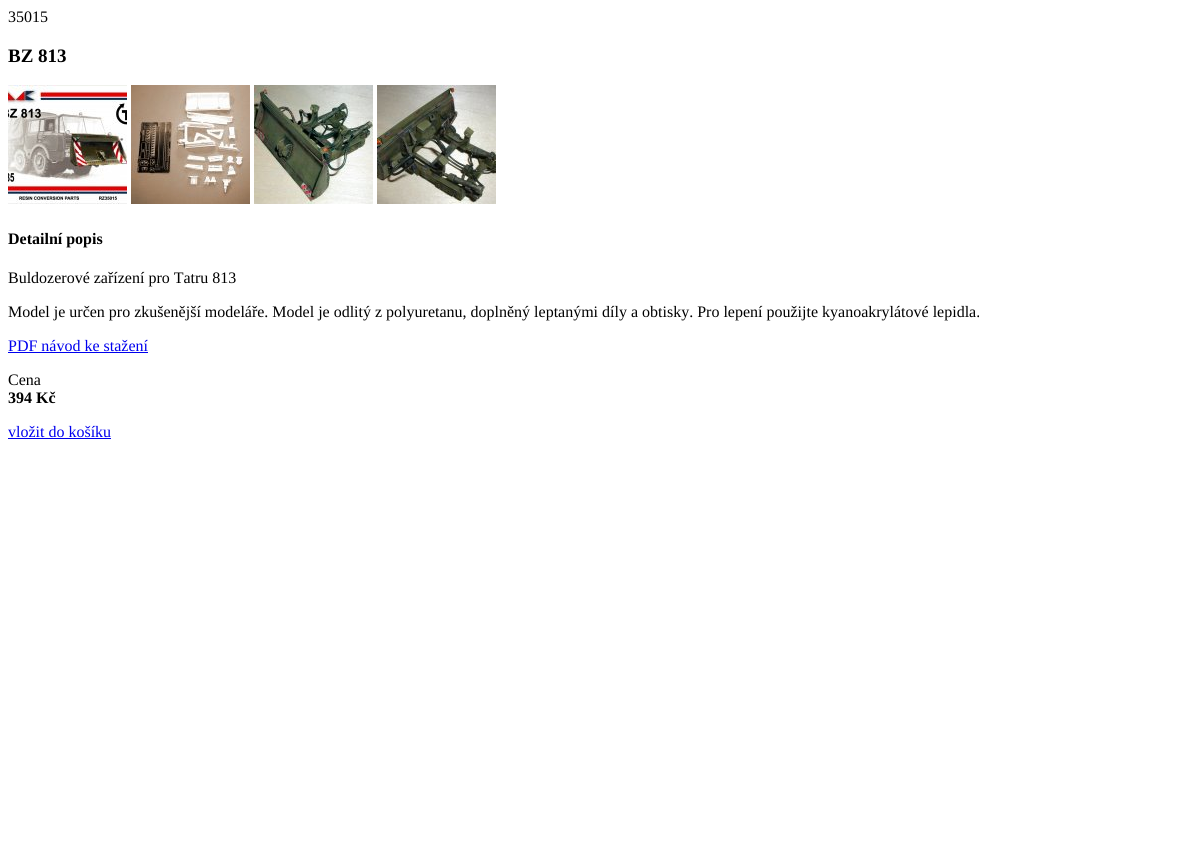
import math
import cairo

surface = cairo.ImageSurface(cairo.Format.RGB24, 1190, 847)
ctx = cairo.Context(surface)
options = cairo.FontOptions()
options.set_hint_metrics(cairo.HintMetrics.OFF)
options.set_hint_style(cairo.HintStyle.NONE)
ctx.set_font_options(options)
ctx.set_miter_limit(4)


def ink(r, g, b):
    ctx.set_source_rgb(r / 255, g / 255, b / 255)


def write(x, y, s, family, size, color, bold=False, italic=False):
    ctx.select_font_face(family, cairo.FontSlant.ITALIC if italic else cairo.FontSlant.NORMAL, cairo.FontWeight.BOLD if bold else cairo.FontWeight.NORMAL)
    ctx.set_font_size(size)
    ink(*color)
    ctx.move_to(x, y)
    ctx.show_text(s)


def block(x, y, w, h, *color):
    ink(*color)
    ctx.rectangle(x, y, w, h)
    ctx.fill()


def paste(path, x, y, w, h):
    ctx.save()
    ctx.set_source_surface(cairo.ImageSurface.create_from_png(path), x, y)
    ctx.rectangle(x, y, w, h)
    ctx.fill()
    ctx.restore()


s1 = dict(family="Liberation Serif", size=16, color=(0, 0, 0))
s2 = dict(family="Liberation Serif", size=19, color=(0, 0, 0), bold=True)
s3 = dict(family="Liberation Serif", size=16, color=(0, 0, 0), bold=True)
s4 = dict(family="Liberation Serif", size=16, color=(0, 0, 238))

ink(255, 255, 255)
ctx.paint()
write(8, 22, "35015", **s1)
write(8, 62, "BZ 813", **s2)
paste("pic1.png", 8, 85, 119, 119)
paste("pic2.png", 131, 85, 119, 119)
paste("pic3.png", 254, 85, 119, 119)
paste("pic4.png", 377, 85, 119, 119)
write(8, 244, "Detailní popis", **s3)
write(8, 283, "Buldozerové zařízení pro Tatru 813", **s1)
write(8, 317, "Model je určen pro zkušenější modeláře. Model je odlitý z polyuretanu, doplněný leptanými díly a obtisky. Pro lepení použijte kyanoakrylátové lepidla.", **s1)
write(8, 351, "PDF návod ke stažení", **s4)
block(8, 352, 140, 1, 0, 0, 238)
write(8, 385, "Cena", **s1)
write(8, 403, "394 Kč", **s3)
write(8, 437, "vložit do košíku", **s4)
block(8, 438, 103, 1, 0, 0, 238)
surface.write_to_png("screenshot.png")
